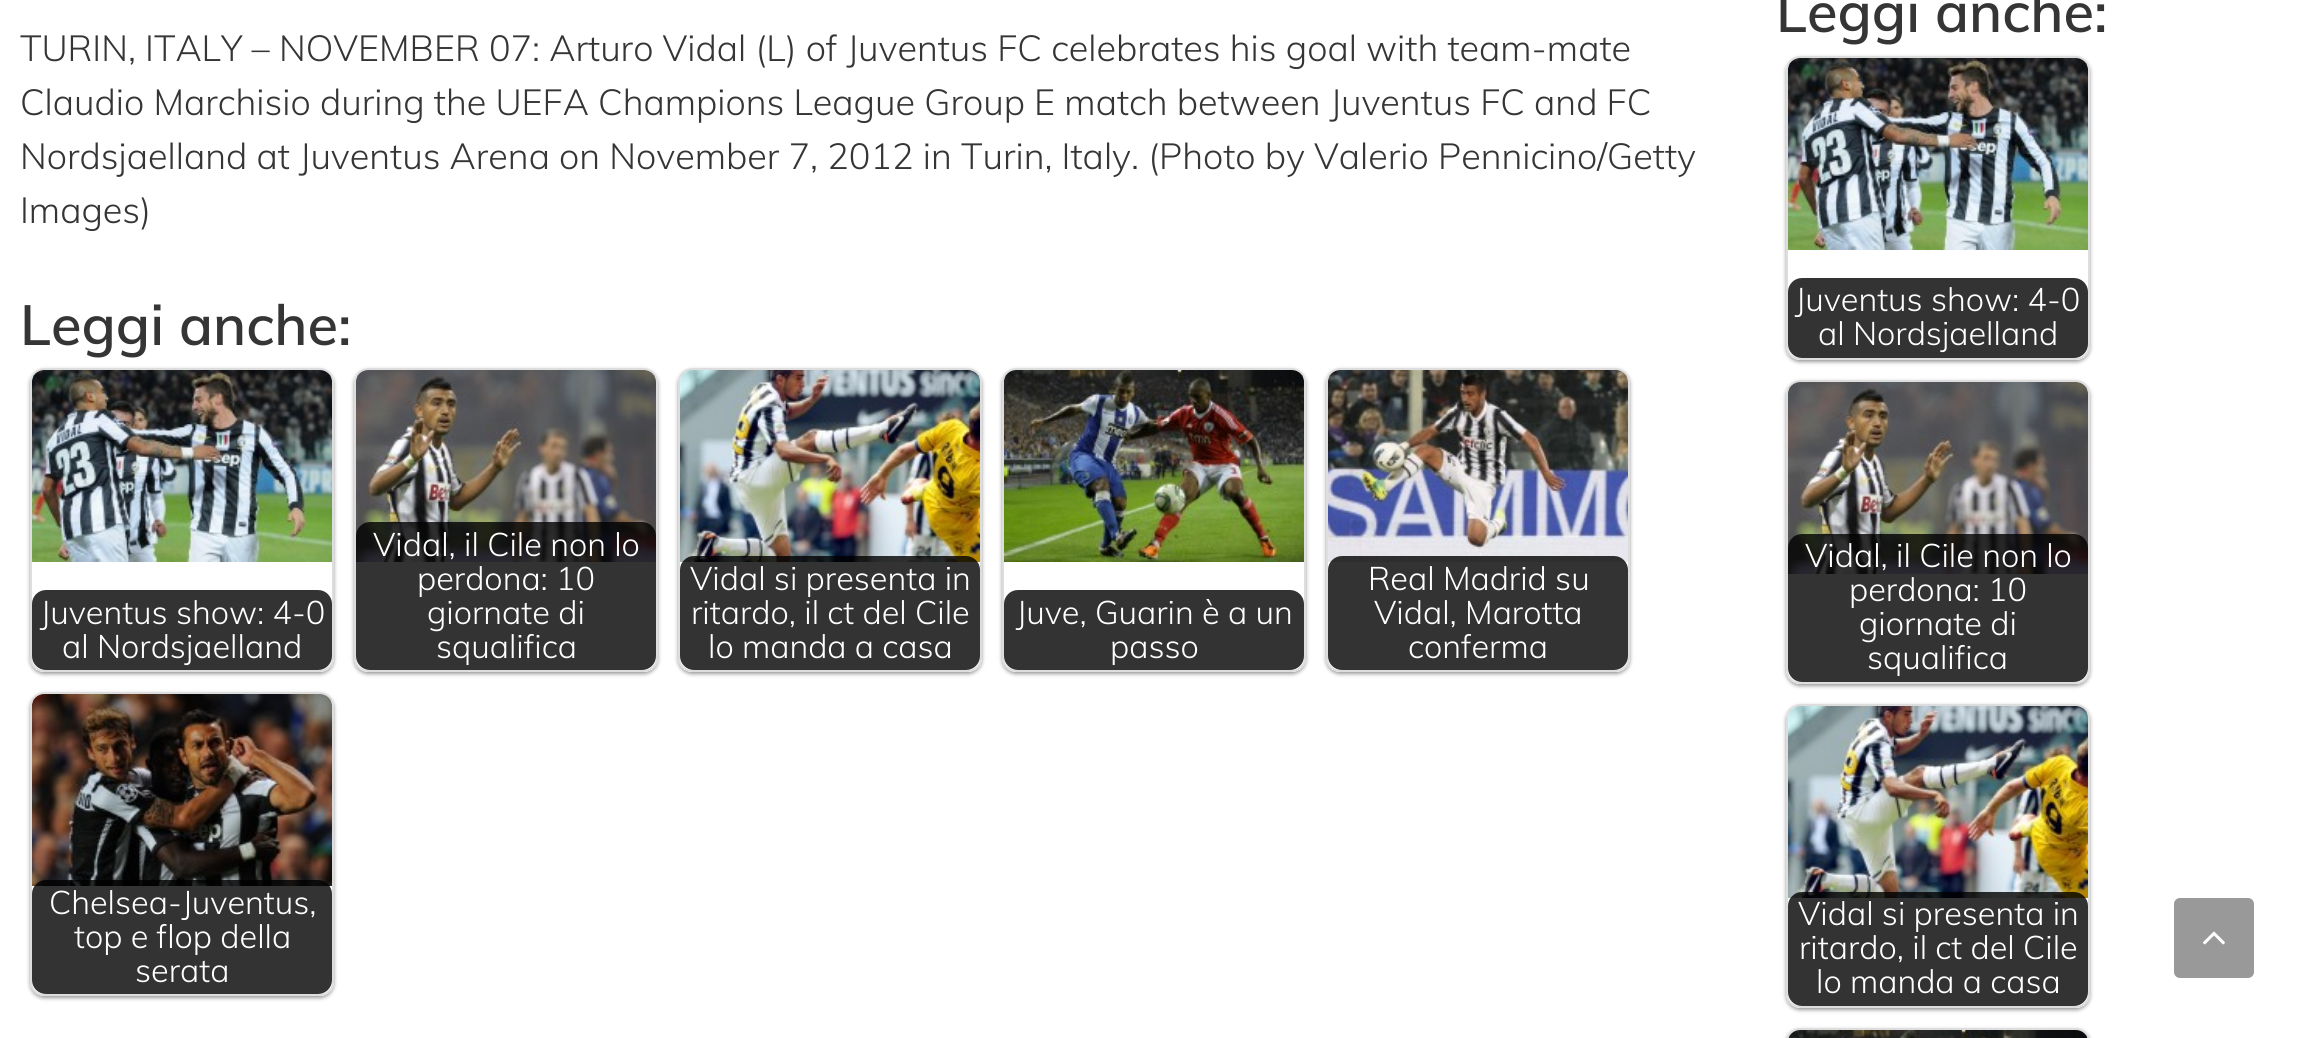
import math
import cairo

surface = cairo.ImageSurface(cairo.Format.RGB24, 2313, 1038)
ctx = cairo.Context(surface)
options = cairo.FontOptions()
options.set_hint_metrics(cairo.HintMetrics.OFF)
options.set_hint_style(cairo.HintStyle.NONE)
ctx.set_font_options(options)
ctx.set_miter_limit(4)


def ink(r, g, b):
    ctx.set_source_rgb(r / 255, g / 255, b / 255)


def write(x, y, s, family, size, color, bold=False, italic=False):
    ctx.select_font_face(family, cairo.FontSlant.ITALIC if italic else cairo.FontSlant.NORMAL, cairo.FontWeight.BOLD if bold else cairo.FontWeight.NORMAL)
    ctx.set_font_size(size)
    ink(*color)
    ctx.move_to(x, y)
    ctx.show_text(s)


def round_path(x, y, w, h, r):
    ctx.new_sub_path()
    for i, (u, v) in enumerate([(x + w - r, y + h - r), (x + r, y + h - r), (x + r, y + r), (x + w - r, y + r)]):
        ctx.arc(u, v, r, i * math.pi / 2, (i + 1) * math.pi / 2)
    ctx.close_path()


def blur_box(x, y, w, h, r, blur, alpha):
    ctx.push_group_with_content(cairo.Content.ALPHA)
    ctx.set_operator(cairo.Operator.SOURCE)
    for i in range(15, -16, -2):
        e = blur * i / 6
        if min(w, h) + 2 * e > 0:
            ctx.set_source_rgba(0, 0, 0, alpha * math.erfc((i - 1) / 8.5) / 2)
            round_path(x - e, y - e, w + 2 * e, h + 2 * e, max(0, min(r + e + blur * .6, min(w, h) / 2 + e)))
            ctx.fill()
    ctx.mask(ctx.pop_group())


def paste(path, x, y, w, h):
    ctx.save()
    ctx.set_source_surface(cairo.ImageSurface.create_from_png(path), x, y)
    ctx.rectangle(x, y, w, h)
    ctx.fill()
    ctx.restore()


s1 = dict(family="Muli Light", size=36, color=(53, 53, 53))
s2 = dict(family="Muli SemiBold", size=56, color=(53, 53, 53))
s3 = dict(family="Muli Light", size=32.5, color=(255, 255, 255))

ink(255, 255, 255)
ctx.paint()
write(20, 61, "TURIN, ITALY – NOVEMBER 07: Arturo Vidal (L) of Juventus FC celebrates his goal with team-mate", **s1)
write(20, 115, "Claudio Marchisio during the UEFA Champions League Group E match between Juventus FC and FC", **s1)
write(20, 169, "Nordsjaelland at Juventus Arena on November 7, 2012 in Turin, Italy. (Photo by Valerio Pennicino/Getty", **s1)
write(20, 223, "Images)", **s1)
write(20, 345, "Leggi anche:", **s2)
ctx.save()
ctx.set_fill_rule(cairo.FillRule.EVEN_ODD)
ctx.new_path()
ctx.move_to(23, 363)
ctx.line_to(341, 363)
ctx.line_to(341, 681)
ctx.line_to(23, 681)
ctx.close_path()
ctx.move_to(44, 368)
ctx.line_to(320, 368)
ctx.curve_to(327.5, 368, 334, 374.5, 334, 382)
ctx.line_to(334, 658)
ctx.curve_to(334, 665.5, 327.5, 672, 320, 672)
ctx.line_to(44, 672)
ctx.curve_to(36.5, 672, 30, 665.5, 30, 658)
ctx.line_to(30, 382)
ctx.curve_to(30, 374.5, 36.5, 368, 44, 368)
ctx.close_path()
ctx.clip()
ink(0, 0, 0)
blur_box(30, 370, 304, 304, 14, 2, 0.4)
ctx.restore()
round_path(31, 369, 302, 302, 13)
ink(221, 221, 221)
ctx.stroke()
paste("pic1.png", 32, 370, 300, 192)
ctx.save()
round_path(32, 370, 300, 300, 12)
ctx.clip()
ink(51, 51, 51)
round_path(32, 590, 300, 80, 14)
ctx.fill()
ctx.restore()
write(40, 624, "Juventus show: 4-0", **s3)
write(62, 658, "al Nordsjaelland", **s3)
ctx.save()
ctx.set_fill_rule(cairo.FillRule.EVEN_ODD)
ctx.new_path()
ctx.move_to(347, 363)
ctx.line_to(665, 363)
ctx.line_to(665, 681)
ctx.line_to(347, 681)
ctx.close_path()
ctx.move_to(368, 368)
ctx.line_to(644, 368)
ctx.curve_to(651.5, 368, 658, 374.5, 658, 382)
ctx.line_to(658, 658)
ctx.curve_to(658, 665.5, 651.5, 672, 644, 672)
ctx.line_to(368, 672)
ctx.curve_to(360.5, 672, 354, 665.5, 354, 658)
ctx.line_to(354, 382)
ctx.curve_to(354, 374.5, 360.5, 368, 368, 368)
ctx.close_path()
ctx.clip()
ink(0, 0, 0)
blur_box(354, 370, 304, 304, 14, 2, 0.4)
ctx.restore()
round_path(355, 369, 302, 302, 13)
ink(221, 221, 221)
ctx.stroke()
paste("pic2.png", 356, 370, 300, 192)
ctx.save()
round_path(356, 370, 300, 300, 12)
ctx.clip()
ctx.set_source_rgba(0, 0, 0, 0.8)
round_path(356, 522, 300, 148, 14)
ctx.fill()
ctx.restore()
write(373, 556, "Vidal, il Cile non lo", **s3)
write(417, 590, "perdona: 10", **s3)
write(427, 624, "giornate di", **s3)
write(436, 658, "squalifica", **s3)
ctx.save()
ctx.set_fill_rule(cairo.FillRule.EVEN_ODD)
ctx.new_path()
ctx.move_to(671, 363)
ctx.line_to(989, 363)
ctx.line_to(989, 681)
ctx.line_to(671, 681)
ctx.close_path()
ctx.move_to(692, 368)
ctx.line_to(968, 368)
ctx.curve_to(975.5, 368, 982, 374.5, 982, 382)
ctx.line_to(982, 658)
ctx.curve_to(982, 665.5, 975.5, 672, 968, 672)
ctx.line_to(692, 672)
ctx.curve_to(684.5, 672, 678, 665.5, 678, 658)
ctx.line_to(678, 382)
ctx.curve_to(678, 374.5, 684.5, 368, 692, 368)
ctx.close_path()
ctx.clip()
ink(0, 0, 0)
blur_box(678, 370, 304, 304, 14, 2, 0.4)
ctx.restore()
round_path(679, 369, 302, 302, 13)
ink(221, 221, 221)
ctx.stroke()
paste("pic3.png", 680, 370, 300, 192)
ctx.save()
round_path(680, 370, 300, 300, 12)
ctx.clip()
ctx.set_source_rgba(0, 0, 0, 0.8)
round_path(680, 556, 300, 114, 14)
ctx.fill()
ctx.restore()
write(690, 590, "Vidal si presenta in", **s3)
write(691, 624, "ritardo, il ct del Cile", **s3)
write(708, 658, "lo manda a casa", **s3)
ctx.save()
ctx.set_fill_rule(cairo.FillRule.EVEN_ODD)
ctx.new_path()
ctx.move_to(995, 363)
ctx.line_to(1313, 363)
ctx.line_to(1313, 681)
ctx.line_to(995, 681)
ctx.close_path()
ctx.move_to(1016, 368)
ctx.line_to(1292, 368)
ctx.curve_to(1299.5, 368, 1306, 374.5, 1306, 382)
ctx.line_to(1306, 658)
ctx.curve_to(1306, 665.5, 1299.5, 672, 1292, 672)
ctx.line_to(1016, 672)
ctx.curve_to(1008.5, 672, 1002, 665.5, 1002, 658)
ctx.line_to(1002, 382)
ctx.curve_to(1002, 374.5, 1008.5, 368, 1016, 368)
ctx.close_path()
ctx.clip()
ink(0, 0, 0)
blur_box(1002, 370, 304, 304, 14, 2, 0.4)
ctx.restore()
round_path(1003, 369, 302, 302, 13)
ink(221, 221, 221)
ctx.stroke()
paste("pic4.png", 1004, 370, 300, 192)
ctx.save()
round_path(1004, 370, 300, 300, 12)
ctx.clip()
ink(51, 51, 51)
round_path(1004, 590, 300, 80, 14)
ctx.fill()
ctx.restore()
write(1016, 624, "Juve, Guarin è a un", **s3)
write(1110, 658, "passo", **s3)
ctx.save()
ctx.set_fill_rule(cairo.FillRule.EVEN_ODD)
ctx.new_path()
ctx.move_to(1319, 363)
ctx.line_to(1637, 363)
ctx.line_to(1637, 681)
ctx.line_to(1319, 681)
ctx.close_path()
ctx.move_to(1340, 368)
ctx.line_to(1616, 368)
ctx.curve_to(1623.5, 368, 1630, 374.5, 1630, 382)
ctx.line_to(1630, 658)
ctx.curve_to(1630, 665.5, 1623.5, 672, 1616, 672)
ctx.line_to(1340, 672)
ctx.curve_to(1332.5, 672, 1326, 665.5, 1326, 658)
ctx.line_to(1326, 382)
ctx.curve_to(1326, 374.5, 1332.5, 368, 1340, 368)
ctx.close_path()
ctx.clip()
ink(0, 0, 0)
blur_box(1326, 370, 304, 304, 14, 2, 0.4)
ctx.restore()
round_path(1327, 369, 302, 302, 13)
ink(221, 221, 221)
ctx.stroke()
paste("pic5.png", 1328, 370, 300, 192)
ctx.save()
round_path(1328, 370, 300, 300, 12)
ctx.clip()
ctx.set_source_rgba(0, 0, 0, 0.8)
round_path(1328, 556, 300, 114, 14)
ctx.fill()
ctx.restore()
write(1368, 590, "Real Madrid su", **s3)
write(1374, 624, "Vidal, Marotta", **s3)
write(1408, 658, "conferma", **s3)
ctx.save()
ctx.set_fill_rule(cairo.FillRule.EVEN_ODD)
ctx.new_path()
ctx.move_to(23, 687)
ctx.line_to(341, 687)
ctx.line_to(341, 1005)
ctx.line_to(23, 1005)
ctx.close_path()
ctx.move_to(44, 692)
ctx.line_to(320, 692)
ctx.curve_to(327.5, 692, 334, 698.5, 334, 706)
ctx.line_to(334, 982)
ctx.curve_to(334, 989.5, 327.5, 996, 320, 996)
ctx.line_to(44, 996)
ctx.curve_to(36.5, 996, 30, 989.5, 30, 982)
ctx.line_to(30, 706)
ctx.curve_to(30, 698.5, 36.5, 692, 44, 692)
ctx.close_path()
ctx.clip()
ink(0, 0, 0)
blur_box(30, 694, 304, 304, 14, 2, 0.4)
ctx.restore()
round_path(31, 693, 302, 302, 13)
ink(221, 221, 221)
ctx.stroke()
paste("pic6.png", 32, 694, 300, 192)
ctx.save()
round_path(32, 694, 300, 300, 12)
ctx.clip()
ctx.set_source_rgba(0, 0, 0, 0.8)
round_path(32, 880, 300, 114, 14)
ctx.fill()
ctx.restore()
write(49, 914, "Chelsea-Juventus,", **s3)
write(74, 948, "top e flop della", **s3)
write(135, 982, "serata", **s3)
write(1776, 32, "Leggi anche:", **s2)
ctx.save()
ctx.set_fill_rule(cairo.FillRule.EVEN_ODD)
ctx.new_path()
ctx.move_to(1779, 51)
ctx.line_to(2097, 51)
ctx.line_to(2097, 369)
ctx.line_to(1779, 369)
ctx.close_path()
ctx.move_to(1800, 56)
ctx.line_to(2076, 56)
ctx.curve_to(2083.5, 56, 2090, 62.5, 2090, 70)
ctx.line_to(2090, 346)
ctx.curve_to(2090, 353.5, 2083.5, 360, 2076, 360)
ctx.line_to(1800, 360)
ctx.curve_to(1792.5, 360, 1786, 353.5, 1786, 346)
ctx.line_to(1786, 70)
ctx.curve_to(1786, 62.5, 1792.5, 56, 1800, 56)
ctx.close_path()
ctx.clip()
ink(0, 0, 0)
blur_box(1786, 58, 304, 304, 14, 2, 0.4)
ctx.restore()
round_path(1787, 57, 302, 302, 13)
ink(221, 221, 221)
ctx.stroke()
paste("pic7.png", 1788, 58, 300, 192)
ctx.save()
round_path(1788, 58, 300, 300, 12)
ctx.clip()
ink(51, 51, 51)
round_path(1788, 278, 300, 80, 14)
ctx.fill()
ctx.restore()
write(1795, 311, "Juventus show: 4-0", **s3)
write(1818, 345, "al Nordsjaelland", **s3)
ctx.save()
ctx.set_fill_rule(cairo.FillRule.EVEN_ODD)
ctx.new_path()
ctx.move_to(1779, 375)
ctx.line_to(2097, 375)
ctx.line_to(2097, 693)
ctx.line_to(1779, 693)
ctx.close_path()
ctx.move_to(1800, 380)
ctx.line_to(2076, 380)
ctx.curve_to(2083.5, 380, 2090, 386.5, 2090, 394)
ctx.line_to(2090, 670)
ctx.curve_to(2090, 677.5, 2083.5, 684, 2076, 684)
ctx.line_to(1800, 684)
ctx.curve_to(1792.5, 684, 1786, 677.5, 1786, 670)
ctx.line_to(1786, 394)
ctx.curve_to(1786, 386.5, 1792.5, 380, 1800, 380)
ctx.close_path()
ctx.clip()
ink(0, 0, 0)
blur_box(1786, 382, 304, 304, 14, 2, 0.4)
ctx.restore()
round_path(1787, 381, 302, 302, 13)
ink(221, 221, 221)
ctx.stroke()
paste("pic8.png", 1788, 382, 300, 192)
ctx.save()
round_path(1788, 382, 300, 300, 12)
ctx.clip()
ctx.set_source_rgba(0, 0, 0, 0.8)
round_path(1788, 534, 300, 148, 14)
ctx.fill()
ctx.restore()
write(1805, 567, "Vidal, il Cile non lo", **s3)
write(1849, 601, "perdona: 10", **s3)
write(1859, 635, "giornate di", **s3)
write(1867, 669, "squalifica", **s3)
ctx.save()
ctx.set_fill_rule(cairo.FillRule.EVEN_ODD)
ctx.new_path()
ctx.move_to(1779, 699)
ctx.line_to(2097, 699)
ctx.line_to(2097, 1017)
ctx.line_to(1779, 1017)
ctx.close_path()
ctx.move_to(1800, 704)
ctx.line_to(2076, 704)
ctx.curve_to(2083.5, 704, 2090, 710.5, 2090, 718)
ctx.line_to(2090, 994)
ctx.curve_to(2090, 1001.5, 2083.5, 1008, 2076, 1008)
ctx.line_to(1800, 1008)
ctx.curve_to(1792.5, 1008, 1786, 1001.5, 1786, 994)
ctx.line_to(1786, 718)
ctx.curve_to(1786, 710.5, 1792.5, 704, 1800, 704)
ctx.close_path()
ctx.clip()
ink(0, 0, 0)
blur_box(1786, 706, 304, 304, 14, 2, 0.4)
ctx.restore()
round_path(1787, 705, 302, 302, 13)
ink(221, 221, 221)
ctx.stroke()
paste("pic9.png", 1788, 706, 300, 192)
ctx.save()
round_path(1788, 706, 300, 300, 12)
ctx.clip()
ctx.set_source_rgba(0, 0, 0, 0.8)
round_path(1788, 892, 300, 114, 14)
ctx.fill()
ctx.restore()
write(1798, 925, "Vidal si presenta in", **s3)
write(1799, 959, "ritardo, il ct del Cile", **s3)
write(1816, 993, "lo manda a casa", **s3)
ink(0, 0, 0)
blur_box(1786, 1030, 304, 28, 14, 2, 0.4)
round_path(1787, 1029, 302, 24, 13)
ink(221, 221, 221)
ctx.stroke()
paste("pic10.png", 1788, 1030, 300, 8)
ink(153, 153, 153)
round_path(2174, 898, 80, 80, 6)
ctx.fill()
paste("pic11.png", 2203, 931, 22, 14)
surface.write_to_png("screenshot.png")
